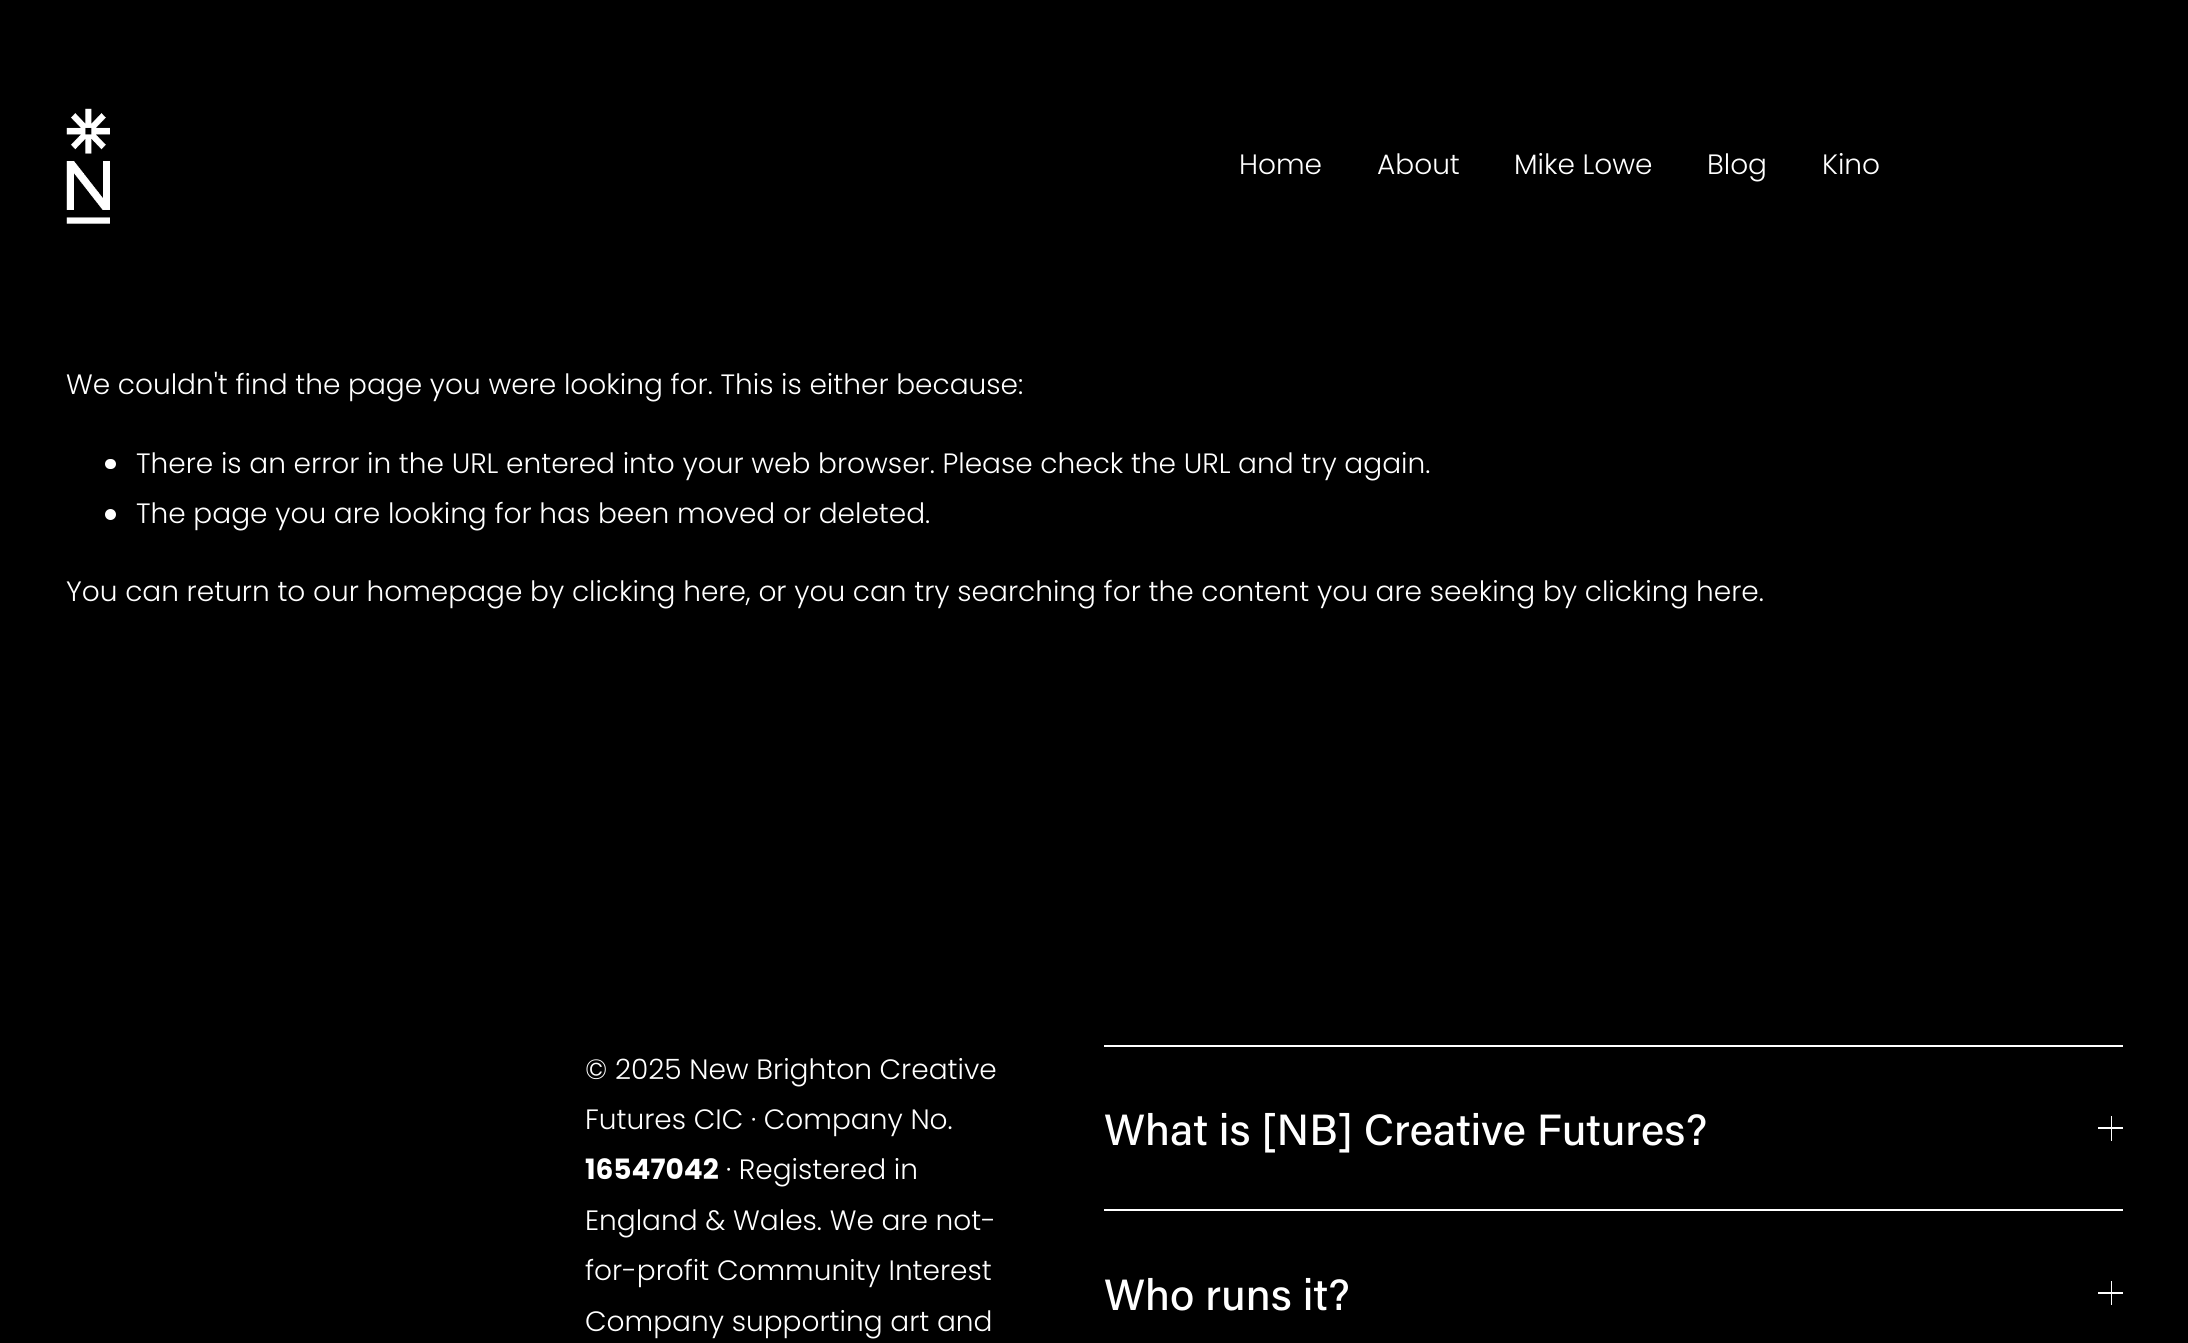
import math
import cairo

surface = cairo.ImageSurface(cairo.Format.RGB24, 2188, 1343)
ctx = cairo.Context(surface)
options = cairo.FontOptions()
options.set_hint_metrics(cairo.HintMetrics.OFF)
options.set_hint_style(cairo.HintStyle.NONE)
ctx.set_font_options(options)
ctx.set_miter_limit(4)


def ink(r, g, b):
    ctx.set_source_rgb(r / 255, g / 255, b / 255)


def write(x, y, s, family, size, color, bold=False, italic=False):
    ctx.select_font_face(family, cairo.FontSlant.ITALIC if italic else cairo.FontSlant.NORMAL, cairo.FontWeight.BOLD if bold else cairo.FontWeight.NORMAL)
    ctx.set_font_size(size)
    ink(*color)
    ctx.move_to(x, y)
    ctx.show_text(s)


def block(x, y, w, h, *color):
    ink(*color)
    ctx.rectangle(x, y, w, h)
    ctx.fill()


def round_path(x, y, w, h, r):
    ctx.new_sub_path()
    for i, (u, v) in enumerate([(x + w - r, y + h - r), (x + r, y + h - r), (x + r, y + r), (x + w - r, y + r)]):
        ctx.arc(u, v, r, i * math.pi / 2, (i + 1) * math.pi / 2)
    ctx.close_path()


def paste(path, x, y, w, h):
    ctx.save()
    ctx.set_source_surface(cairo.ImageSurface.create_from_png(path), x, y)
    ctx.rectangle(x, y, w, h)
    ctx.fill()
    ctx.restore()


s1 = dict(family="Poppins Light", size=28, color=(255, 255, 255))
s2 = dict(family="Poppins", size=28, color=(255, 255, 255), bold=True)
s3 = dict(family="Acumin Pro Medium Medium", size=43.75, color=(255, 255, 255))

ink(0, 0, 0)
ctx.paint()
paste("pic1.png", 66, 108, 44, 116)
write(1239, 174, "Home", **s1)
write(1377, 174, "About", **s1)
write(1514, 174, "Mike Lowe", **s1)
write(1707, 174, "Blog", **s1)
write(1822, 174, "Kino", **s1)
write(66, 394, "We couldn't find the page you were looking for. This is either because:", **s1)
round_path(105, 459, 11, 10, 5)
ctx.fill()
write(136, 473, "There is an error in the URL entered into your web browser. Please check the URL and try again.", **s1)
ctx.new_path()
ctx.arc(110.5, 514.5, 5.5, 0, 2 * math.pi)
ctx.fill()
write(136, 523, "The page you are looking for has been moved or deleted.", **s1)
write(66, 601, "You can return to our homepage by clicking here, or you can try searching for the content you are seeking by clicking here.", **s1)
write(585, 1079, "© 2025 New Brighton Creative", **s1)
write(585, 1129, "Futures CIC · Company No.", **s1)
write(585, 1179, "16547042", **s2)
write(726, 1179, "· Registered in", **s1)
write(585, 1230, "England & Wales. We are not-", **s1)
write(585, 1280, "for-profit Community Interest", **s1)
write(585, 1331, "Company supporting art and", **s1)
block(1104, 1045, 1019, 2, 255, 255, 255)
write(1104, 1145, "What is [NB] Creative Futures?", **s3)
block(2098, 1127, 25, 2, 255, 255, 255)
block(2111, 1116, 1, 25, 255, 255, 255)
block(1104, 1209, 1019, 2, 255, 255, 255)
write(1104, 1310, "Who runs it?", **s3)
block(2098, 1292, 25, 2, 255, 255, 255)
block(2111, 1281, 1, 24, 255, 255, 255)
surface.write_to_png("screenshot.png")
